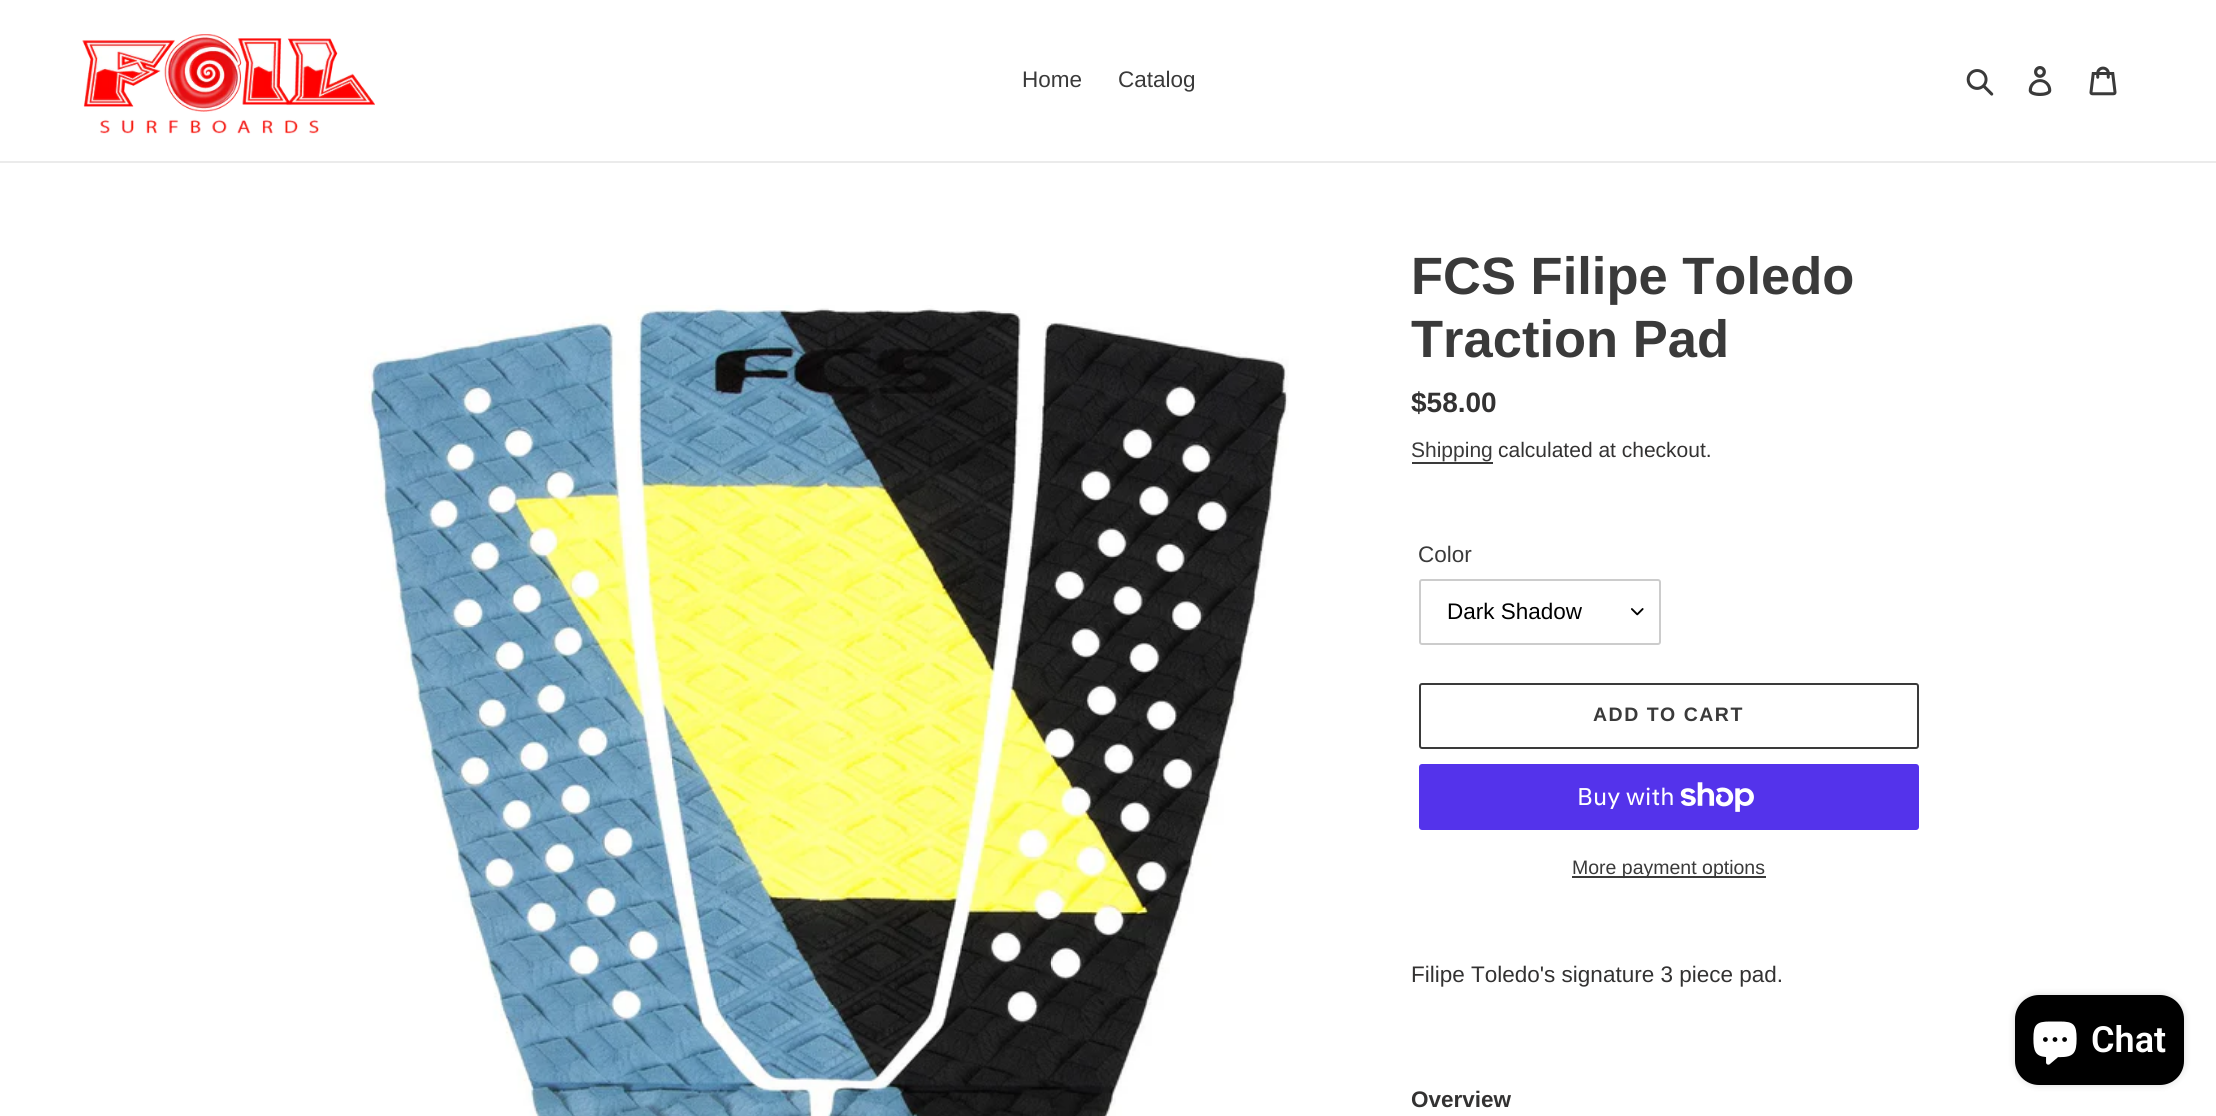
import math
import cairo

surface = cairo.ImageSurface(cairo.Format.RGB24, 2216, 1116)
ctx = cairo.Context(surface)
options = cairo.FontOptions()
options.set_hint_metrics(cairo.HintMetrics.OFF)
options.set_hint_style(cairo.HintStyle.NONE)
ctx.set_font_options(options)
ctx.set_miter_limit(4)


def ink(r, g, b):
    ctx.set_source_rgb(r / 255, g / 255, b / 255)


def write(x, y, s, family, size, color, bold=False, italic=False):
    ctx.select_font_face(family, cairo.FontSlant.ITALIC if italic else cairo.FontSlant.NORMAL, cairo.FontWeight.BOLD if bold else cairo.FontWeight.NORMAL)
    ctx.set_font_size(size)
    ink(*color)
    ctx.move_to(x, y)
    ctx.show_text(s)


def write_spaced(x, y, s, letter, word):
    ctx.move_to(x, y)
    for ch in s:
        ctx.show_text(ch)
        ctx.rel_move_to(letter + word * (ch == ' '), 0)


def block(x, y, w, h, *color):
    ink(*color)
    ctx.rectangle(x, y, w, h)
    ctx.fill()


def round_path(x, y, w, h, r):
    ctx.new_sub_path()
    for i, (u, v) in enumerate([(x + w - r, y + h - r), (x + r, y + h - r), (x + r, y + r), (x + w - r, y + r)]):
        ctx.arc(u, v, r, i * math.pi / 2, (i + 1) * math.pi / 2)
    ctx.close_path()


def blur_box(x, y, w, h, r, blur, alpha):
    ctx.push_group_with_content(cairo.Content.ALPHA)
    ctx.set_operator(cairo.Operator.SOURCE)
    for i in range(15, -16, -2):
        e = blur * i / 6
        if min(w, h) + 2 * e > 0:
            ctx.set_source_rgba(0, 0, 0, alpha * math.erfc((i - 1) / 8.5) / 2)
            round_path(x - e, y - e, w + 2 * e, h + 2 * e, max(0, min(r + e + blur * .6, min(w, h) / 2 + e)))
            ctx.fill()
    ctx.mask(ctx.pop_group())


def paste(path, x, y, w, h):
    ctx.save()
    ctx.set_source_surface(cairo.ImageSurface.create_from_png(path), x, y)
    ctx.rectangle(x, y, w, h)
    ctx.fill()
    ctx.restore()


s1 = dict(family="Liberation Sans", size=22.5, color=(58, 58, 58))
s2 = dict(family="Liberation Sans", size=52.5, color=(58, 58, 58), bold=True)
s3 = dict(family="Liberation Sans", size=28, color=(51, 50, 50), bold=True)
s4 = dict(family="Liberation Sans", size=21, color=(58, 58, 58))
s5 = dict(family="Liberation Sans", size=21, color=(51, 50, 50))
s6 = dict(family="Liberation Sans", size=22.5, color=(0, 0, 0))
s7 = dict(family="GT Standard", size=24, color=(255, 255, 255))
s8 = dict(family="Liberation Sans", size=19.5, color=(58, 58, 58))
s9 = dict(family="Liberation Sans", size=22.5, color=(51, 50, 50))
s10 = dict(family="Liberation Sans", size=22.5, color=(51, 50, 50), bold=True)
s11 = dict(family="Roboto SemiBold", size=36, color=(255, 255, 255))

ink(255, 255, 255)
ctx.paint()
block(0, 161, 2216, 2, 235, 235, 235)
paste("pic1.png", 82, 34, 293, 100)
write(1022, 87, "Home", **s1)
write(1118, 87, "Catalog", **s1)
paste("pic2.png", 1966, 69, 28, 27)
paste("pic3.png", 2028, 66, 24, 30)
paste("pic4.png", 2089, 66, 28, 30)
paste("pic5.png", 364, 305, 925, 811)
write(1411, 294, "FCS Filipe Toledo", **s2)
write(1411, 357, "Traction Pad", **s2)
write(1411, 412, "$58.00", **s3)
write(1411, 457, "Shipping", **s4)
block(1412, 462, 81, 2, 58, 58, 58)
write(1498, 457, "calculated at checkout.", **s5)
write(1418, 562, "Color", **s1)
paste("pic6.png", 1631, 608, 13, 8)
round_path(1420, 580, 240, 64, 2)
ink(204, 204, 204)
ctx.stroke()
write(1447, 619, "Dark Shadow", **s6)
round_path(1420, 684, 498, 64, 2)
ink(58, 58, 58)
ctx.stroke()
ctx.select_font_face("Liberation Sans", cairo.FontSlant.NORMAL, cairo.FontWeight.BOLD)
ctx.set_font_size(19.5)
write_spaced(1593, 721, "ADD TO CART", 1.5, 0)
ink(84, 51, 235)
round_path(1419, 764, 500, 66, 3)
ctx.fill()
write(1577, 805, "Buy with", **s7)
paste("pic7.png", 1680, 782, 74, 30)
block(1572, 876, 194, 2, 58, 58, 58)
write(1572, 874, "More payment options", **s8)
write(1411, 982, "Filipe Toledo's signature 3 piece pad.", **s9)
write(1411, 1107, "Overview", **s10)
ink(0, 0, 0)
blur_box(2015, 995, 169, 90, 24, 4, 0.15)
ink(0, 0, 0)
round_path(2015, 995, 169, 90, 24)
ctx.fill()
paste("pic8.png", 2033, 1021, 44, 44)
write(2091, 1052, "Chat", **s11)
surface.write_to_png("screenshot.png")
